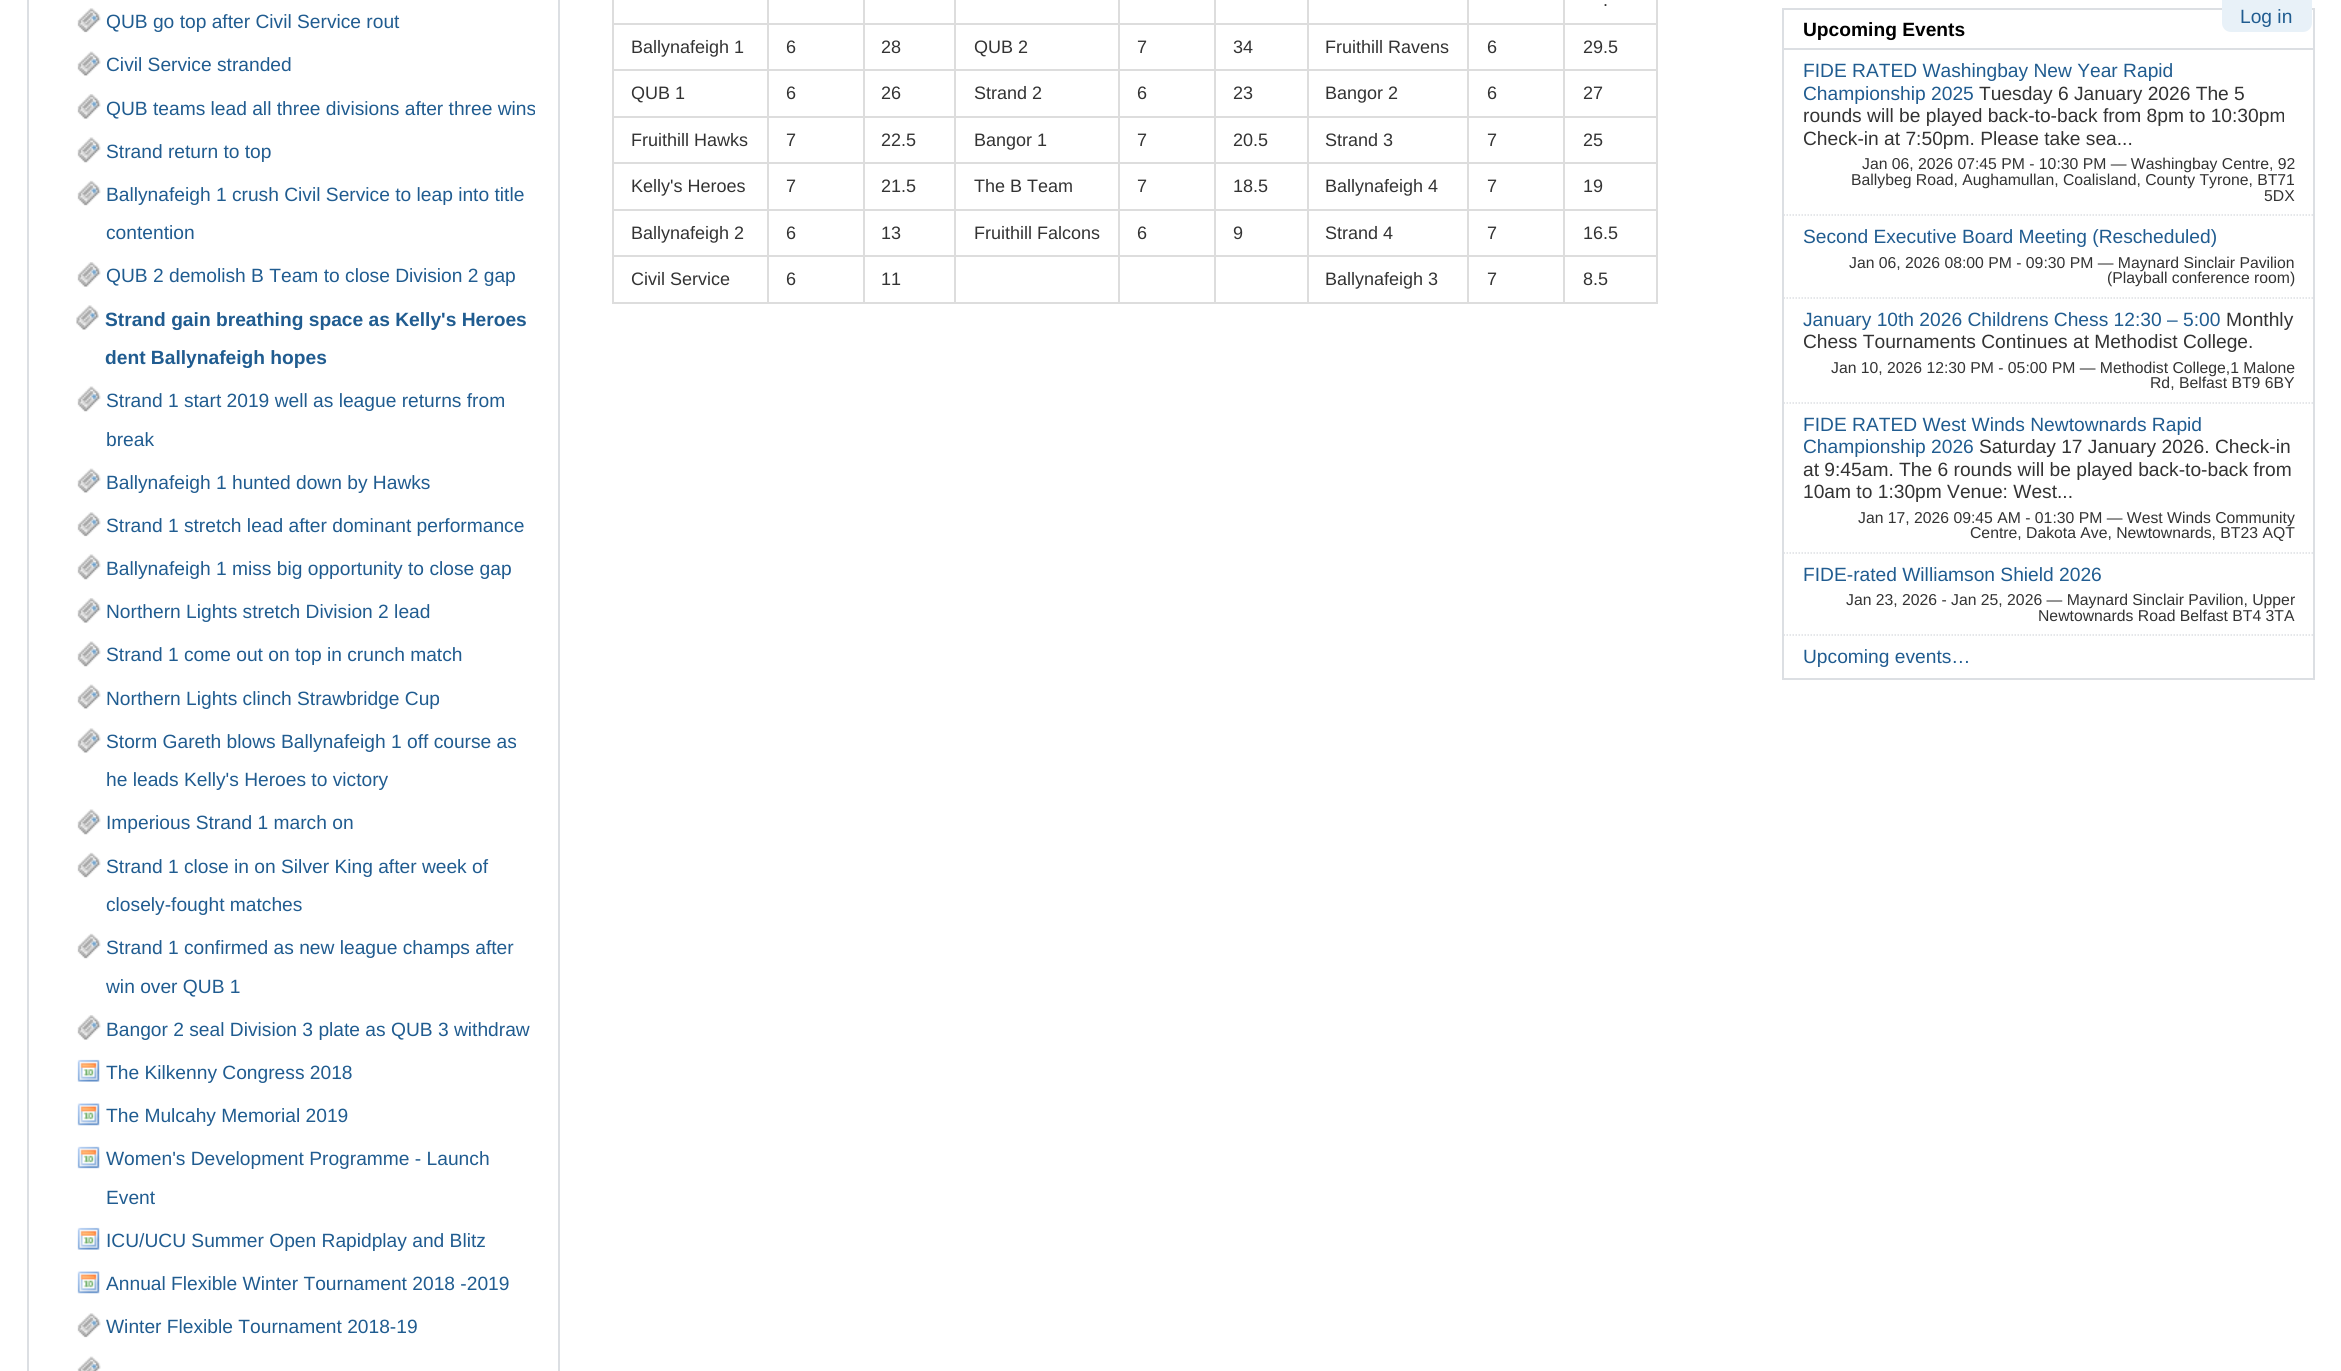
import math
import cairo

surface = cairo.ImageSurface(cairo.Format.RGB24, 2341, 1371)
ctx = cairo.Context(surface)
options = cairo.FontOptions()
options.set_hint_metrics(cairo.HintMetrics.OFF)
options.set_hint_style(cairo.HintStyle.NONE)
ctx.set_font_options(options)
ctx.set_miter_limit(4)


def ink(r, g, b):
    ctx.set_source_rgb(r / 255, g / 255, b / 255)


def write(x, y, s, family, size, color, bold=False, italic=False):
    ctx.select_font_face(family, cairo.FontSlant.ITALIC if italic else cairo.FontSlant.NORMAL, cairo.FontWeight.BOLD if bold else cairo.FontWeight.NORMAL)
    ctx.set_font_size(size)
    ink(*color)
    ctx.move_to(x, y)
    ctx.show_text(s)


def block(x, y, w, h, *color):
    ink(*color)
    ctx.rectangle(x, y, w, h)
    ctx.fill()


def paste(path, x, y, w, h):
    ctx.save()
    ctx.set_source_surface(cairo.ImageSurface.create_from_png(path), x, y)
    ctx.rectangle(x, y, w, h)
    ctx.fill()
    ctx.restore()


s1 = dict(family="Liberation Sans", size=19.2, color=(32, 92, 144))
s2 = dict(family="Liberation Sans", size=19.2, color=(32, 92, 144), bold=True)
s3 = dict(family="Liberation Sans", size=18, color=(51, 51, 51))
s4 = dict(family="Liberation Sans", size=19.2, color=(0, 0, 0), bold=True)
s5 = dict(family="Liberation Sans", size=19.2, color=(51, 51, 51))
s6 = dict(family="Liberation Sans", size=15.75, color=(51, 51, 51))

ink(255, 255, 255)
ctx.paint()
ctx.rectangle(28, -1, 531, 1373)
ink(220, 223, 227)
ctx.stroke()
paste("pic1.png", 77, 8, 24, 25)
write(106, 28, "QUB go top after Civil Service rout", **s1)
paste("pic2.png", 77, 51, 24, 25)
write(106, 71, "Civil Service stranded", **s1)
paste("pic3.png", 77, 94, 24, 25)
write(106, 115, "QUB teams lead all three divisions after three wins", **s1)
paste("pic4.png", 77, 137, 24, 26)
write(106, 158, "Strand return to top", **s1)
paste("pic5.png", 77, 180, 24, 26)
write(106, 201, "Ballynafeigh 1 crush Civil Service to leap into title", **s1)
write(106, 239, "contention", **s1)
paste("pic3.png", 77, 262, 24, 25)
write(106, 282, "QUB 2 demolish B Team to close Division 2 gap", **s1)
paste("pic6.png", 76, 305, 23, 25)
write(105, 326, "Strand gain breathing space as Kelly's Heroes", **s2)
write(105, 364, "dent Ballynafeigh hopes", **s2)
paste("pic7.png", 77, 386, 24, 26)
write(106, 407, "Strand 1 start 2019 well as league returns from", **s1)
write(106, 446, "break", **s1)
paste("pic2.png", 77, 468, 24, 25)
write(106, 489, "Ballynafeigh 1 hunted down by Hawks", **s1)
paste("pic8.png", 77, 512, 24, 25)
write(106, 532, "Strand 1 stretch lead after dominant performance", **s1)
paste("pic4.png", 77, 554, 24, 26)
write(106, 575, "Ballynafeigh 1 miss big opportunity to close gap", **s1)
paste("pic3.png", 77, 598, 24, 25)
write(106, 618, "Northern Lights stretch Division 2 lead", **s1)
paste("pic7.png", 77, 641, 24, 26)
write(106, 661, "Strand 1 come out on top in crunch match", **s1)
paste("pic2.png", 77, 684, 24, 25)
write(106, 705, "Northern Lights clinch Strawbridge Cup", **s1)
paste("pic9.png", 77, 728, 24, 25)
write(106, 748, "Storm Gareth blows Ballynafeigh 1 off course as", **s1)
write(106, 786, "he leads Kelly's Heroes to victory", **s1)
paste("pic4.png", 77, 809, 24, 26)
write(106, 829, "Imperious Strand 1 march on", **s1)
paste("pic10.png", 77, 852, 24, 26)
write(106, 873, "Strand 1 close in on Silver King after week of", **s1)
write(106, 911, "closely-fought matches", **s1)
paste("pic11.png", 77, 933, 24, 26)
write(106, 954, "Strand 1 confirmed as new league champs after", **s1)
write(106, 993, "win over QUB 1", **s1)
paste("pic3.png", 77, 1015, 24, 25)
write(106, 1036, "Bangor 2 seal Division 3 plate as QUB 3 withdraw", **s1)
paste("pic12.png", 77, 1059, 23, 23)
write(106, 1079, "The Kilkenny Congress 2018", **s1)
paste("pic13.png", 77, 1103, 23, 23)
write(106, 1122, "The Mulcahy Memorial 2019", **s1)
paste("pic14.png", 77, 1146, 23, 23)
write(106, 1165, "Women's Development Programme - Launch", **s1)
write(106, 1204, "Event", **s1)
paste("pic12.png", 77, 1227, 23, 23)
write(106, 1247, "ICU/UCU Summer Open Rapidplay and Blitz", **s1)
paste("pic13.png", 77, 1271, 23, 23)
write(106, 1290, "Annual Flexible Winter Tournament 2018 -2019", **s1)
paste("pic1.png", 77, 1313, 24, 25)
write(106, 1333, "Winter Flexible Tournament 2018-19", **s1)
paste("pic15.png", 77, 1356, 24, 15)
block(1563, 23, 95, 2, 221, 221, 221)
block(1563, 69, 95, 2, 221, 221, 221)
block(1563, 116, 95, 2, 221, 221, 221)
block(1563, 162, 95, 2, 221, 221, 221)
block(1563, 209, 95, 2, 221, 221, 221)
block(1563, 255, 95, 2, 221, 221, 221)
block(1656, 255, 2, 48, 221, 221, 221)
block(1563, 302, 95, 2, 221, 221, 221)
block(1563, 255, 2, 48, 221, 221, 221)
block(1467, 255, 98, 2, 221, 221, 221)
block(1563, 209, 2, 48, 221, 221, 221)
block(1467, 209, 98, 2, 221, 221, 221)
block(1563, 162, 2, 48, 221, 221, 221)
block(1467, 162, 98, 2, 221, 221, 221)
block(1563, 116, 2, 48, 221, 221, 221)
block(1467, 116, 98, 2, 221, 221, 221)
block(1563, 69, 2, 48, 221, 221, 221)
block(1467, 69, 98, 2, 221, 221, 221)
block(1563, 23, 2, 48, 221, 221, 221)
block(1467, 23, 98, 2, 221, 221, 221)
block(1467, 302, 98, 2, 221, 221, 221)
block(1467, 255, 2, 48, 221, 221, 221)
block(1307, 255, 162, 2, 221, 221, 221)
block(1467, 209, 2, 48, 221, 221, 221)
block(1307, 209, 162, 2, 221, 221, 221)
block(1467, 162, 2, 48, 221, 221, 221)
block(1307, 162, 162, 2, 221, 221, 221)
block(1467, 116, 2, 48, 221, 221, 221)
block(1307, 116, 162, 2, 221, 221, 221)
block(1467, 69, 2, 48, 221, 221, 221)
block(1307, 69, 162, 2, 221, 221, 221)
block(1467, 23, 2, 48, 221, 221, 221)
block(1307, 23, 162, 2, 221, 221, 221)
block(1307, 302, 162, 2, 221, 221, 221)
block(1307, 255, 2, 48, 221, 221, 221)
block(1214, 255, 94, 2, 221, 221, 221)
block(1307, 209, 2, 48, 221, 221, 221)
block(1214, 209, 94, 2, 221, 221, 221)
block(1307, 162, 2, 48, 221, 221, 221)
block(1214, 162, 94, 2, 221, 221, 221)
block(1307, 116, 2, 48, 221, 221, 221)
block(1214, 116, 94, 2, 221, 221, 221)
block(1307, 69, 2, 48, 221, 221, 221)
block(1214, 69, 94, 2, 221, 221, 221)
block(1307, 23, 2, 48, 221, 221, 221)
block(1214, 23, 94, 2, 221, 221, 221)
block(1214, 302, 94, 2, 221, 221, 221)
block(1214, 255, 2, 48, 221, 221, 221)
block(1118, 255, 97, 2, 221, 221, 221)
block(1214, 209, 2, 48, 221, 221, 221)
block(1118, 209, 97, 2, 221, 221, 221)
block(1214, 162, 2, 48, 221, 221, 221)
block(1118, 162, 97, 2, 221, 221, 221)
block(1214, 116, 2, 48, 221, 221, 221)
block(1118, 116, 97, 2, 221, 221, 221)
block(1214, 69, 2, 48, 221, 221, 221)
block(1118, 69, 97, 2, 221, 221, 221)
block(1214, 23, 2, 48, 221, 221, 221)
block(1118, 23, 97, 2, 221, 221, 221)
block(1118, 302, 97, 2, 221, 221, 221)
block(1118, 255, 2, 48, 221, 221, 221)
block(954, 255, 165, 2, 221, 221, 221)
block(1118, 209, 2, 48, 221, 221, 221)
block(954, 209, 165, 2, 221, 221, 221)
block(1118, 162, 2, 48, 221, 221, 221)
block(954, 162, 165, 2, 221, 221, 221)
block(1118, 116, 2, 48, 221, 221, 221)
block(954, 116, 165, 2, 221, 221, 221)
block(1118, 69, 2, 48, 221, 221, 221)
block(954, 69, 165, 2, 221, 221, 221)
block(1118, 23, 2, 48, 221, 221, 221)
block(954, 23, 165, 2, 221, 221, 221)
block(954, 302, 165, 2, 221, 221, 221)
block(954, 255, 2, 48, 221, 221, 221)
block(863, 255, 93, 2, 221, 221, 221)
block(954, 209, 2, 48, 221, 221, 221)
block(863, 209, 93, 2, 221, 221, 221)
block(954, 162, 2, 48, 221, 221, 221)
block(863, 162, 93, 2, 221, 221, 221)
block(954, 116, 2, 48, 221, 221, 221)
block(863, 116, 93, 2, 221, 221, 221)
block(954, 69, 2, 48, 221, 221, 221)
block(863, 69, 93, 2, 221, 221, 221)
block(954, 23, 2, 48, 221, 221, 221)
block(863, 23, 93, 2, 221, 221, 221)
block(863, 302, 93, 2, 221, 221, 221)
block(863, 255, 2, 48, 221, 221, 221)
block(767, 255, 97, 2, 221, 221, 221)
block(863, 209, 2, 48, 221, 221, 221)
block(767, 209, 97, 2, 221, 221, 221)
block(863, 162, 2, 48, 221, 221, 221)
block(767, 162, 97, 2, 221, 221, 221)
block(863, 116, 2, 48, 221, 221, 221)
block(767, 116, 97, 2, 221, 221, 221)
block(863, 69, 2, 48, 221, 221, 221)
block(767, 69, 97, 2, 221, 221, 221)
block(863, 23, 2, 48, 221, 221, 221)
block(767, 23, 97, 2, 221, 221, 221)
block(767, 302, 97, 2, 221, 221, 221)
block(767, 255, 2, 48, 221, 221, 221)
block(612, 255, 156, 2, 221, 221, 221)
block(767, 209, 2, 48, 221, 221, 221)
block(612, 209, 156, 2, 221, 221, 221)
block(767, 162, 2, 48, 221, 221, 221)
block(612, 162, 156, 2, 221, 221, 221)
block(767, 116, 2, 48, 221, 221, 221)
block(612, 116, 156, 2, 221, 221, 221)
block(767, 69, 2, 48, 221, 221, 221)
block(612, 69, 156, 2, 221, 221, 221)
block(767, 23, 2, 48, 221, 221, 221)
block(612, 23, 156, 2, 221, 221, 221)
block(767, 0, 2, 24, 221, 221, 221)
block(863, 0, 2, 24, 221, 221, 221)
block(954, 0, 2, 24, 221, 221, 221)
block(1118, 0, 2, 24, 221, 221, 221)
block(1214, 0, 2, 24, 221, 221, 221)
block(1307, 0, 2, 24, 221, 221, 221)
block(1467, 0, 2, 24, 221, 221, 221)
block(1563, 0, 2, 24, 221, 221, 221)
write(1603, 6, ".", **s3)
block(612, 302, 156, 2, 221, 221, 221)
block(612, 255, 2, 48, 221, 221, 221)
block(612, 209, 2, 48, 221, 221, 221)
block(612, 162, 2, 48, 221, 221, 221)
block(612, 116, 2, 48, 221, 221, 221)
block(612, 69, 2, 48, 221, 221, 221)
block(612, 0, 2, 71, 221, 221, 221)
write(631, 53, "Ballynafeigh 1", **s3)
write(786, 53, "6", **s3)
write(881, 53, "28", **s3)
write(974, 53, "QUB 2", **s3)
write(1137, 53, "7", **s3)
write(1233, 53, "34", **s3)
write(1325, 53, "Fruithill Ravens", **s3)
write(1487, 53, "6", **s3)
block(1656, 209, 2, 48, 221, 221, 221)
block(1656, 162, 2, 48, 221, 221, 221)
block(1656, 116, 2, 48, 221, 221, 221)
block(1656, 69, 2, 48, 221, 221, 221)
block(1656, 0, 2, 71, 221, 221, 221)
write(1583, 53, "29.5", **s3)
write(631, 99, "QUB 1", **s3)
write(786, 99, "6", **s3)
write(881, 99, "26", **s3)
write(974, 99, "Strand 2", **s3)
write(1137, 99, "6", **s3)
write(1233, 99, "23", **s3)
write(1325, 99, "Bangor 2", **s3)
write(1487, 99, "6", **s3)
write(1583, 99, "27", **s3)
write(631, 146, "Fruithill Hawks", **s3)
write(786, 146, "7", **s3)
write(881, 146, "22.5", **s3)
write(974, 146, "Bangor 1", **s3)
write(1137, 146, "7", **s3)
write(1233, 146, "20.5", **s3)
write(1325, 146, "Strand 3", **s3)
write(1487, 146, "7", **s3)
write(1583, 146, "25", **s3)
write(631, 192, "Kelly's Heroes", **s3)
write(786, 192, "7", **s3)
write(881, 192, "21.5", **s3)
write(974, 192, "The B Team", **s3)
write(1137, 192, "7", **s3)
write(1233, 192, "18.5", **s3)
write(1325, 192, "Ballynafeigh 4", **s3)
write(1487, 192, "7", **s3)
write(1583, 192, "19", **s3)
write(631, 239, "Ballynafeigh 2", **s3)
write(786, 239, "6", **s3)
write(881, 239, "13", **s3)
write(974, 239, "Fruithill Falcons", **s3)
write(1137, 239, "6", **s3)
write(1233, 239, "9", **s3)
write(1325, 239, "Strand 4", **s3)
write(1487, 239, "7", **s3)
write(1583, 239, "16.5", **s3)
write(631, 285, "Civil Service", **s3)
write(786, 285, "6", **s3)
write(881, 285, "11", **s3)
write(1325, 285, "Ballynafeigh 3", **s3)
write(1487, 285, "7", **s3)
write(1583, 285, "8.5", **s3)
ctx.rectangle(1783, 9, 531, 670)
ink(220, 223, 227)
ctx.stroke()
block(1784, 48, 529, 2, 220, 223, 227)
write(1803, 36, "Upcoming Events", **s4)
ctx.new_path()
ctx.move_to(1783.5, 215)
ctx.line_to(2313, 215)
ink(220, 223, 227)
ctx.set_line_width(1.5)
ctx.set_dash([1.5, 1.5])
ctx.stroke()
write(1803, 77, "FIDE RATED Washingbay New Year Rapid", **s1)
write(1803, 100, "Championship 2025", **s1)
write(1979, 100, "Tuesday 6 January 2026 The 5", **s5)
write(1803, 122, "rounds will be played back-to-back from 8pm to 10:30pm", **s5)
write(1803, 145, "Check-in at 7:50pm. Please take sea...", **s5)
write(1862, 169, "Jan 06, 2026 07:45 PM - 10:30 PM — Washingbay Centre, 92", **s6)
write(1851, 185, "Ballybeg Road, Aughamullan, Coalisland, County Tyrone, BT71", **s6)
write(2264, 201, "5DX", **s6)
ctx.new_path()
ctx.move_to(1783.5, 298)
ctx.line_to(2313, 298)
ink(220, 223, 227)
ctx.stroke()
write(1803, 243, "Second Executive Board Meeting (Rescheduled)", **s1)
write(1849, 268, "Jan 06, 2026 08:00 PM - 09:30 PM — Maynard Sinclair Pavilion", **s6)
write(2107, 283, "(Playball conference room)", **s6)
ctx.new_path()
ctx.move_to(1783.5, 403)
ctx.line_to(2313, 403)
ink(220, 223, 227)
ctx.stroke()
write(1803, 326, "January 10th 2026 Childrens Chess 12:30 – 5:00", **s1)
write(2226, 326, "Monthly", **s5)
write(1803, 348, "Chess Tournaments Continues at Methodist College.", **s5)
write(1831, 373, "Jan 10, 2026 12:30 PM - 05:00 PM — Methodist College,1 Malone", **s6)
write(2150, 388, "Rd, Belfast BT9 6BY", **s6)
ctx.new_path()
ctx.move_to(1783.5, 553)
ctx.line_to(2313, 553)
ink(220, 223, 227)
ctx.stroke()
write(1803, 431, "FIDE RATED West Winds Newtownards Rapid", **s1)
write(1803, 453, "Championship 2026", **s1)
write(1979, 453, "Saturday 17 January 2026. Check-in", **s5)
write(1803, 476, "at 9:45am. The 6 rounds will be played back-to-back from", **s5)
write(1803, 498, "10am to 1:30pm Venue: West...", **s5)
write(1858, 523, "Jan 17, 2026 09:45 AM - 01:30 PM — West Winds Community", **s6)
write(1970, 538, "Centre, Dakota Ave, Newtownards, BT23 AQT", **s6)
ctx.new_path()
ctx.move_to(1783.5, 635)
ctx.line_to(2313, 635)
ink(220, 223, 227)
ctx.stroke()
write(1803, 581, "FIDE-rated Williamson Shield 2026", **s1)
write(1846, 605, "Jan 23, 2026 - Jan 25, 2026 — Maynard Sinclair Pavilion, Upper", **s6)
write(2038, 621, "Newtownards Road Belfast BT4 3TA", **s6)
write(1803, 663, "Upcoming events…", **s1)
ink(232, 241, 248)
ctx.new_path()
ctx.move_to(2222, 0)
ctx.line_to(2312, 0)
ctx.line_to(2312, 23)
ctx.curve_to(2312, 28, 2308, 32, 2303, 32)
ctx.line_to(2231, 32)
ctx.curve_to(2226, 32, 2222, 28, 2222, 23)
ctx.close_path()
ctx.fill()
write(2240, 23, "Log in", **s1)
surface.write_to_png("screenshot.png")
